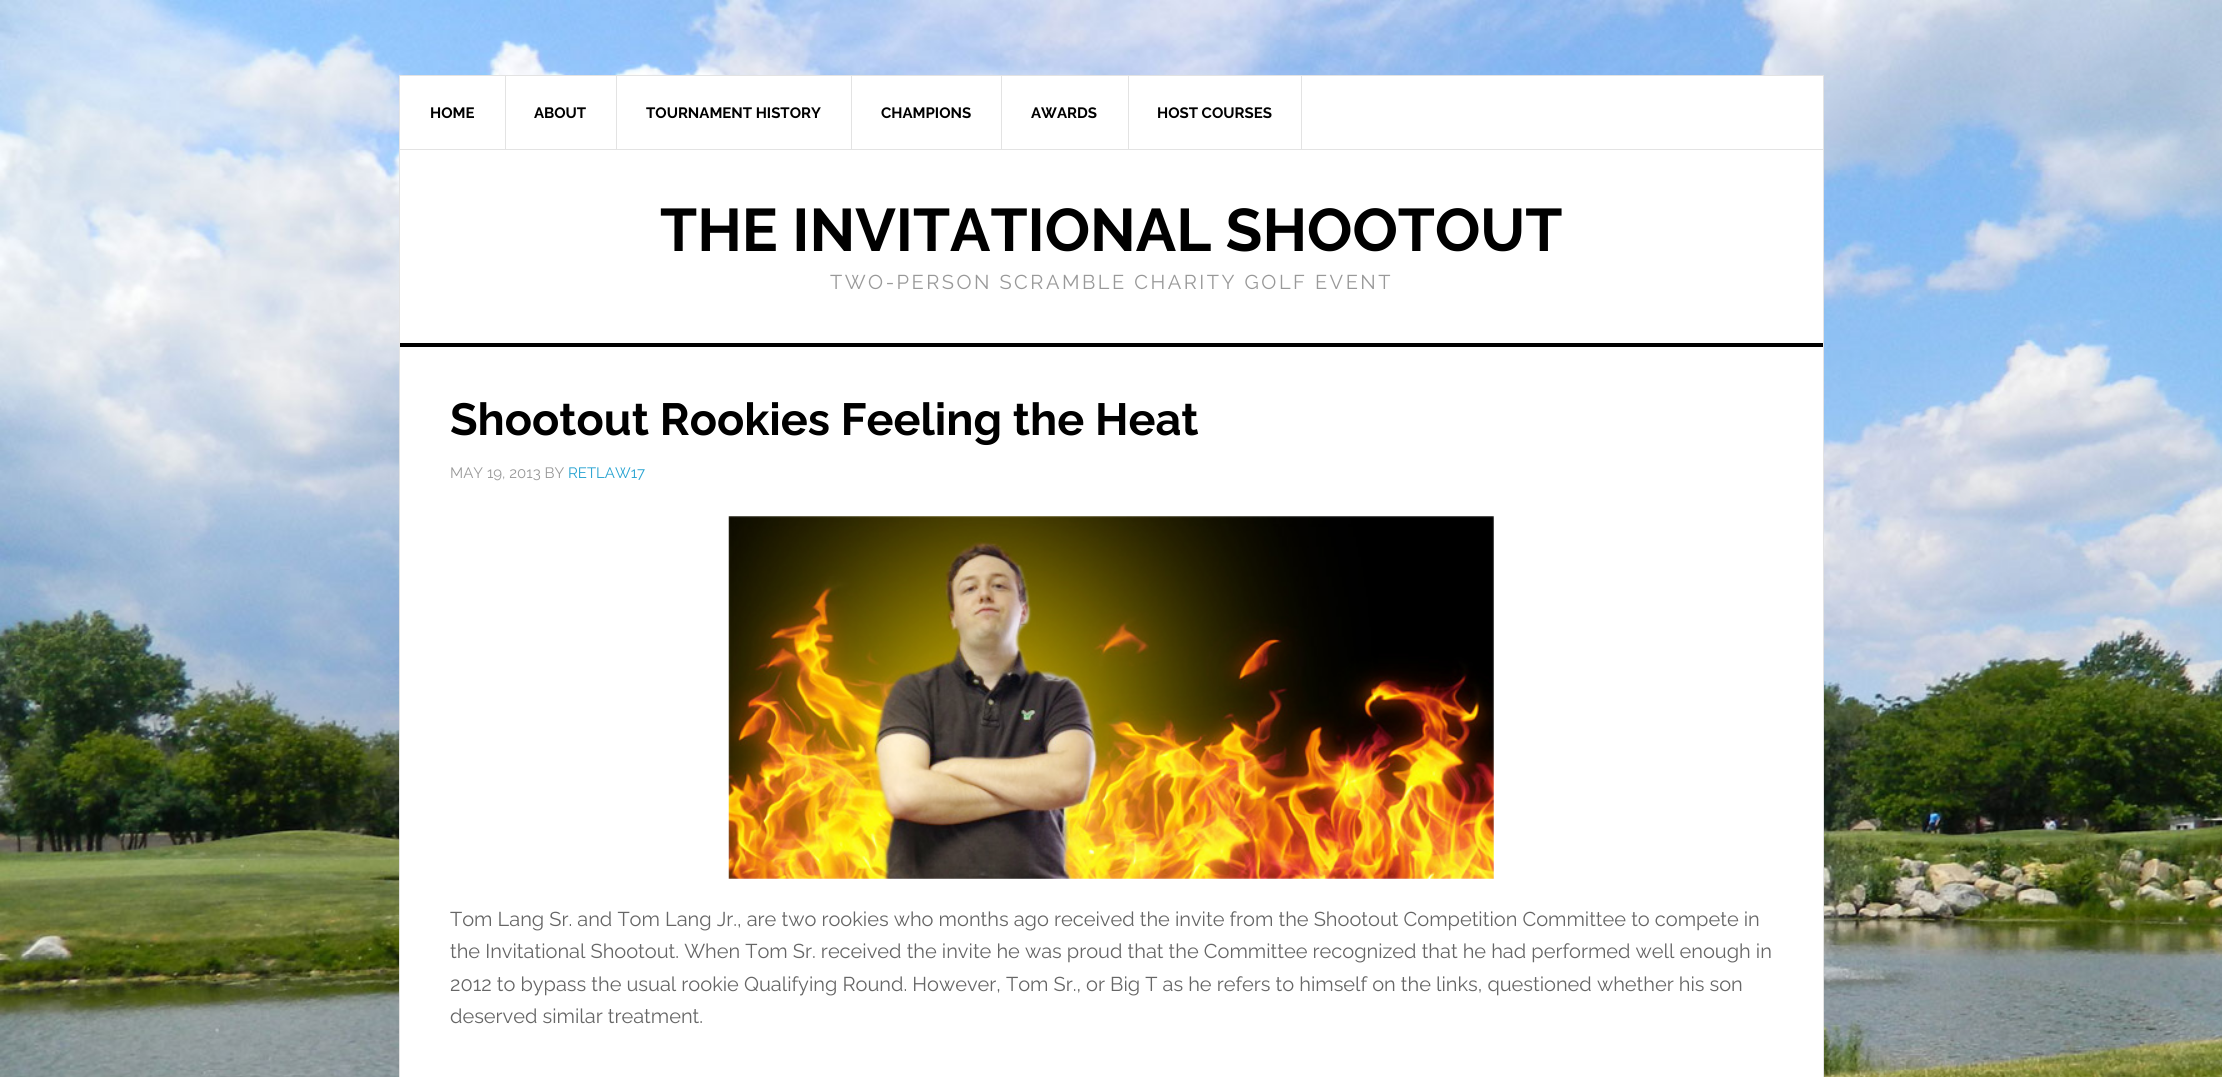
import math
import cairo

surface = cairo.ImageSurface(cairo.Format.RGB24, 2222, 1077)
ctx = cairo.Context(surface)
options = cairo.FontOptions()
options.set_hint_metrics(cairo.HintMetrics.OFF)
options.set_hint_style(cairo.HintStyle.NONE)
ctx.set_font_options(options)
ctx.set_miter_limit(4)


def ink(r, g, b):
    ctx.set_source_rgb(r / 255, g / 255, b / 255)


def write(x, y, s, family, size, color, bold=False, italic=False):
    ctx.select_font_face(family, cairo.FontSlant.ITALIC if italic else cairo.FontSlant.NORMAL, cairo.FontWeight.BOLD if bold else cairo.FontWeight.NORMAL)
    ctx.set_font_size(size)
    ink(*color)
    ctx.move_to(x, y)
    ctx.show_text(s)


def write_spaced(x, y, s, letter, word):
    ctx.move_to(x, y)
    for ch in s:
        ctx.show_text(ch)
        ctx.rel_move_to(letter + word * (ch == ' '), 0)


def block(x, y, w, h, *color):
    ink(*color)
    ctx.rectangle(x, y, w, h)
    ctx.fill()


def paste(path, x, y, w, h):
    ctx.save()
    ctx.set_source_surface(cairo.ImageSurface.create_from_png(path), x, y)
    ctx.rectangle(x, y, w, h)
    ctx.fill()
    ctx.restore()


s1 = dict(family="Raleway", size=15, color=(0, 0, 0), bold=True)
s2 = dict(family="Raleway", size=60, color=(0, 0, 0), bold=True)
s3 = dict(family="Raleway", size=45, color=(0, 0, 0), bold=True)
s4 = dict(family="Raleway", size=15, color=(153, 153, 153))
s5 = dict(family="Raleway", size=15, color=(39, 163, 209))
s6 = dict(family="Raleway", size=20, color=(102, 102, 102))

ink(255, 255, 255)
ctx.paint()
paste("pic1.png", 0, 0, 2222, 1077)
ink(255, 255, 255)
ctx.rectangle(399.5, 75.5, 1424, 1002)
ctx.fill_preserve()
ink(227, 227, 227)
ctx.set_line_width(1)
ctx.stroke()
block(400, 149, 1423, 1, 227, 227, 227)
block(505, 76, 1, 73, 227, 227, 227)
write(430, 118, "HOME", **s1)
block(616, 76, 1, 73, 227, 227, 227)
write(534, 118, "ABOUT", **s1)
block(851, 76, 1, 73, 227, 227, 227)
write(646, 118, "TOURNAMENT HISTORY", **s1)
block(1001, 76, 1, 73, 227, 227, 227)
write(881, 118, "CHAMPIONS", **s1)
block(1128, 76, 1, 73, 227, 227, 227)
write(1031, 118, "AWARDS", **s1)
block(1301, 76, 1, 73, 227, 227, 227)
write(1157, 118, "HOST COURSES", **s1)
block(400, 343, 1423, 4, 0, 0, 0)
write(660, 251, "THE INVITATIONAL SHOOTOUT", **s2)
ctx.select_font_face("Raleway")
ctx.set_font_size(20)
ink(153, 153, 153)
write_spaced(830, 289, "TWO-PERSON SCRAMBLE CHARITY GOLF EVENT", 2.5, 0)
write(450, 435, "Shootout Rookies Feeling the Heat", **s3)
write(450, 478, "MAY 19, 2013 BY", **s4)
write(568, 478, "RETLAW17", **s5)
paste("pic2.png", 728, 516, 766, 363)
write(450, 926, "Tom Lang Sr. and Tom Lang Jr., are two rookies who months ago received the invite from the Shootout Competition Committee to compete in", **s6)
write(450, 958, "the Invitational Shootout. When Tom Sr. received the invite he was proud that the Committee recognized that he had performed well enough in", **s6)
write(450, 991, "2012 to bypass the usual rookie Qualifying Round. However, Tom Sr., or Big T as he refers to himself on the links, questioned whether his son", **s6)
write(450, 1023, "deserved similar treatment.", **s6)
surface.write_to_png("screenshot.png")
